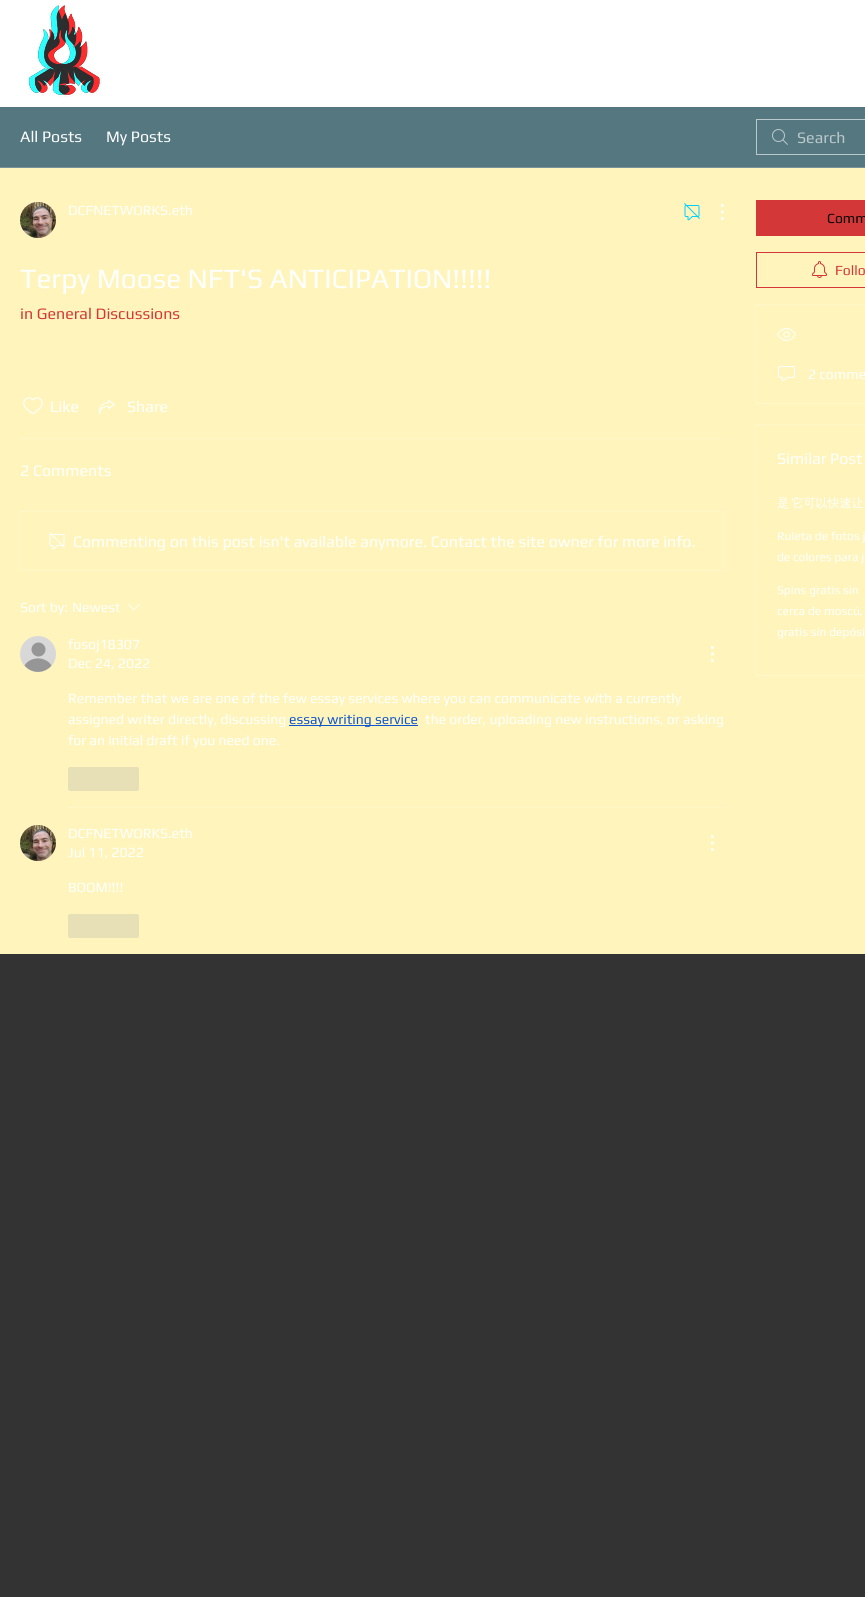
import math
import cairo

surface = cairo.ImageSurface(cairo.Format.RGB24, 865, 1597)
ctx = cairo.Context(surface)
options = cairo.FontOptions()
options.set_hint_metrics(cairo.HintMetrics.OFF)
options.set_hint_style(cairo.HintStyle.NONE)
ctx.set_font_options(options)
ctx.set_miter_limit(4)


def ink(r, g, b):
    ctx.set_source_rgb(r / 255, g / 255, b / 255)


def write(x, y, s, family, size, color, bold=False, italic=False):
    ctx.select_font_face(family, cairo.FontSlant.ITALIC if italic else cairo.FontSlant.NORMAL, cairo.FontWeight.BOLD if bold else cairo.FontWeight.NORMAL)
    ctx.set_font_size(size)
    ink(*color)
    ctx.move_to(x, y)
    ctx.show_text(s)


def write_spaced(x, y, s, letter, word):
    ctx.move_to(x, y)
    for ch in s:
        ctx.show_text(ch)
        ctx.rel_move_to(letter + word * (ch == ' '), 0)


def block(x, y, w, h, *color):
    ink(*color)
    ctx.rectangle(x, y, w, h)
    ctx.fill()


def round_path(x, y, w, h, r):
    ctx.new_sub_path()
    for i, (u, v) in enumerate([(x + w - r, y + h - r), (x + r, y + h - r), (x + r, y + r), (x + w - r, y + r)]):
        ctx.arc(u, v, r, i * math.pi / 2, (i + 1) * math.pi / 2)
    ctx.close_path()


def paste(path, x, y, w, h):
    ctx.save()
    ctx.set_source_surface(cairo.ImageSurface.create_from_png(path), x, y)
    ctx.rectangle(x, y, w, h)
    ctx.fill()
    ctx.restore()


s1 = dict(family="Play", size=16, color=(255, 255, 255))
s2 = dict(family="Play", size=16, color=(187, 201, 204))
s3 = dict(family="Play", size=14, color=(255, 255, 255))
s4 = dict(family="Play", size=28, color=(255, 255, 255))
s5 = dict(family="Play", size=16, color=(211, 55, 55))
s6 = dict(family="Play", size=14, color=(17, 85, 204))
s7 = dict(family="Play", size=14, color=(0, 0, 0))
s8 = dict(family="Play", size=14, color=(211, 55, 55))
s9 = dict(family="Play", size=12, color=(255, 255, 255))

ink(51, 51, 51)
ctx.paint()
block(0, 0, 865, 107, 255, 255, 255)
paste("pic1.png", 27, 4, 75, 93)
block(0, 107, 865, 60, 85, 120, 128)
block(0, 167, 865, 1, 119, 147, 153)
write(20, 142, "All Posts", **s1)
write(106, 142, "My Posts", **s1)
paste("pic2.png", 772, 129, 16, 16)
ctx.rectangle(756.5, 119.5, 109, 35)
ink(187, 201, 204)
ctx.set_line_width(1)
ctx.stroke()
write(797, 143, "Search", **s2)
block(0, 168, 865, 786, 255, 245, 188)
paste("pic3.png", 20, 202, 36, 36)
write(68, 215, "DCFNETWORKS.eth", **s3)
paste("pic4.png", 684, 203, 16, 18)
paste("pic5.png", 721, 204, 3, 16)
write(20, 288, "Terpy Moose NFT'S ANTICIPATION!!!!!", **s4)
write(20, 319, "in General Discussions", **s5)
paste("pic6.png", 23, 397, 20, 17)
write(50, 412, "Like", **s1)
paste("pic7.png", 99, 400, 16, 14)
write(127, 412, "Share", **s1)
block(20, 438, 704, 1, 255, 247, 201)
write(20, 476, "2 Comments", **s1)
ctx.rectangle(20.5, 511.5, 703, 59)
ink(255, 247, 201)
ctx.stroke()
paste("pic8.png", 49, 532, 16, 18)
write(73, 547, "Commenting on this post isn't available anymore. Contact the site owner for more info.", **s1)
write(20, 612, "Sort by:", **s3)
write(72, 612, "Newest", **s3)
paste("pic9.png", 128, 604, 12, 7)
ink(216, 216, 216)
ctx.arc(38, 654, 18, 0, 2 * math.pi)
ctx.fill()
ink(150, 150, 150)
ctx.arc(38.5, 649.5, 7, 0, 2 * math.pi)
ctx.fill()
ctx.new_path()
ctx.move_to(51.5, 665.5)
ctx.curve_to(44.5, 674, 31.5, 674, 24.5, 665.5)
ctx.curve_to(30.5, 656, 45.5, 656, 51.5, 665.5)
ctx.close_path()
ctx.fill()
write(68, 649, "fosoj18307", **s3)
write(68, 668, "Dec 24, 2022", **s3)
paste("pic10.png", 711, 646, 3, 16)
write(68, 703, "Remember that we are one of the few essay services where you can communicate with a currently", **s3)
write(68, 724, "assigned writer directly, discussing", **s3)
block(289, 725, 129, 1, 17, 85, 204)
write(289, 724, "essay writing service", **s6)
write(425, 724, "the order, uploading new instructions, or asking", **s3)
write(68, 745, "for an initial draft if you need one.", **s3)
ink(231, 224, 183)
round_path(68, 767, 71, 24, 2)
ctx.fill()
block(68, 807, 656, 1, 255, 247, 201)
paste("pic11.png", 20, 825, 36, 36)
write(68, 838, "DCFNETWORKS.eth", **s3)
write(68, 857, "Jul 11, 2022", **s3)
paste("pic10.png", 711, 835, 3, 16)
write(68, 892, "BOOM!!!!", **s3)
ink(231, 224, 183)
round_path(68, 914, 71, 24, 2)
ctx.fill()
block(756, 200, 109, 36, 211, 55, 55)
write(827, 223, "Comm", **s7)
ctx.rectangle(756.5, 252.5, 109, 35)
ink(211, 55, 55)
ctx.stroke()
paste("pic12.png", 812, 261, 15, 17)
write(835, 275, "Follo", **s8)
ctx.rectangle(756.5, 304.5, 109, 99)
ink(255, 247, 201)
ctx.stroke()
paste("pic13.png", 777, 328, 19, 13)
paste("pic14.png", 778, 366, 17, 15)
write(808, 379, "2 comme", **s3)
ctx.rectangle(756.5, 424.5, 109, 251)
ink(255, 247, 201)
ctx.stroke()
write(777, 464, "Similar Post", **s1)
ctx.select_font_face("WenQuanYi Zen Hei Medium")
ctx.set_font_size(12)
write_spaced(777, 507, "是 它可以快速让", 0, -1)
write(777, 540, "Ruleta de fotos j", **s9)
write(777, 561, "de colores para j", **s9)
write(777, 594, "Spins gratis sin", **s9)
write(777, 615, "cerca de moscú,", **s9)
write(777, 636, "gratis sin depósi", **s9)
surface.write_to_png("screenshot.png")
